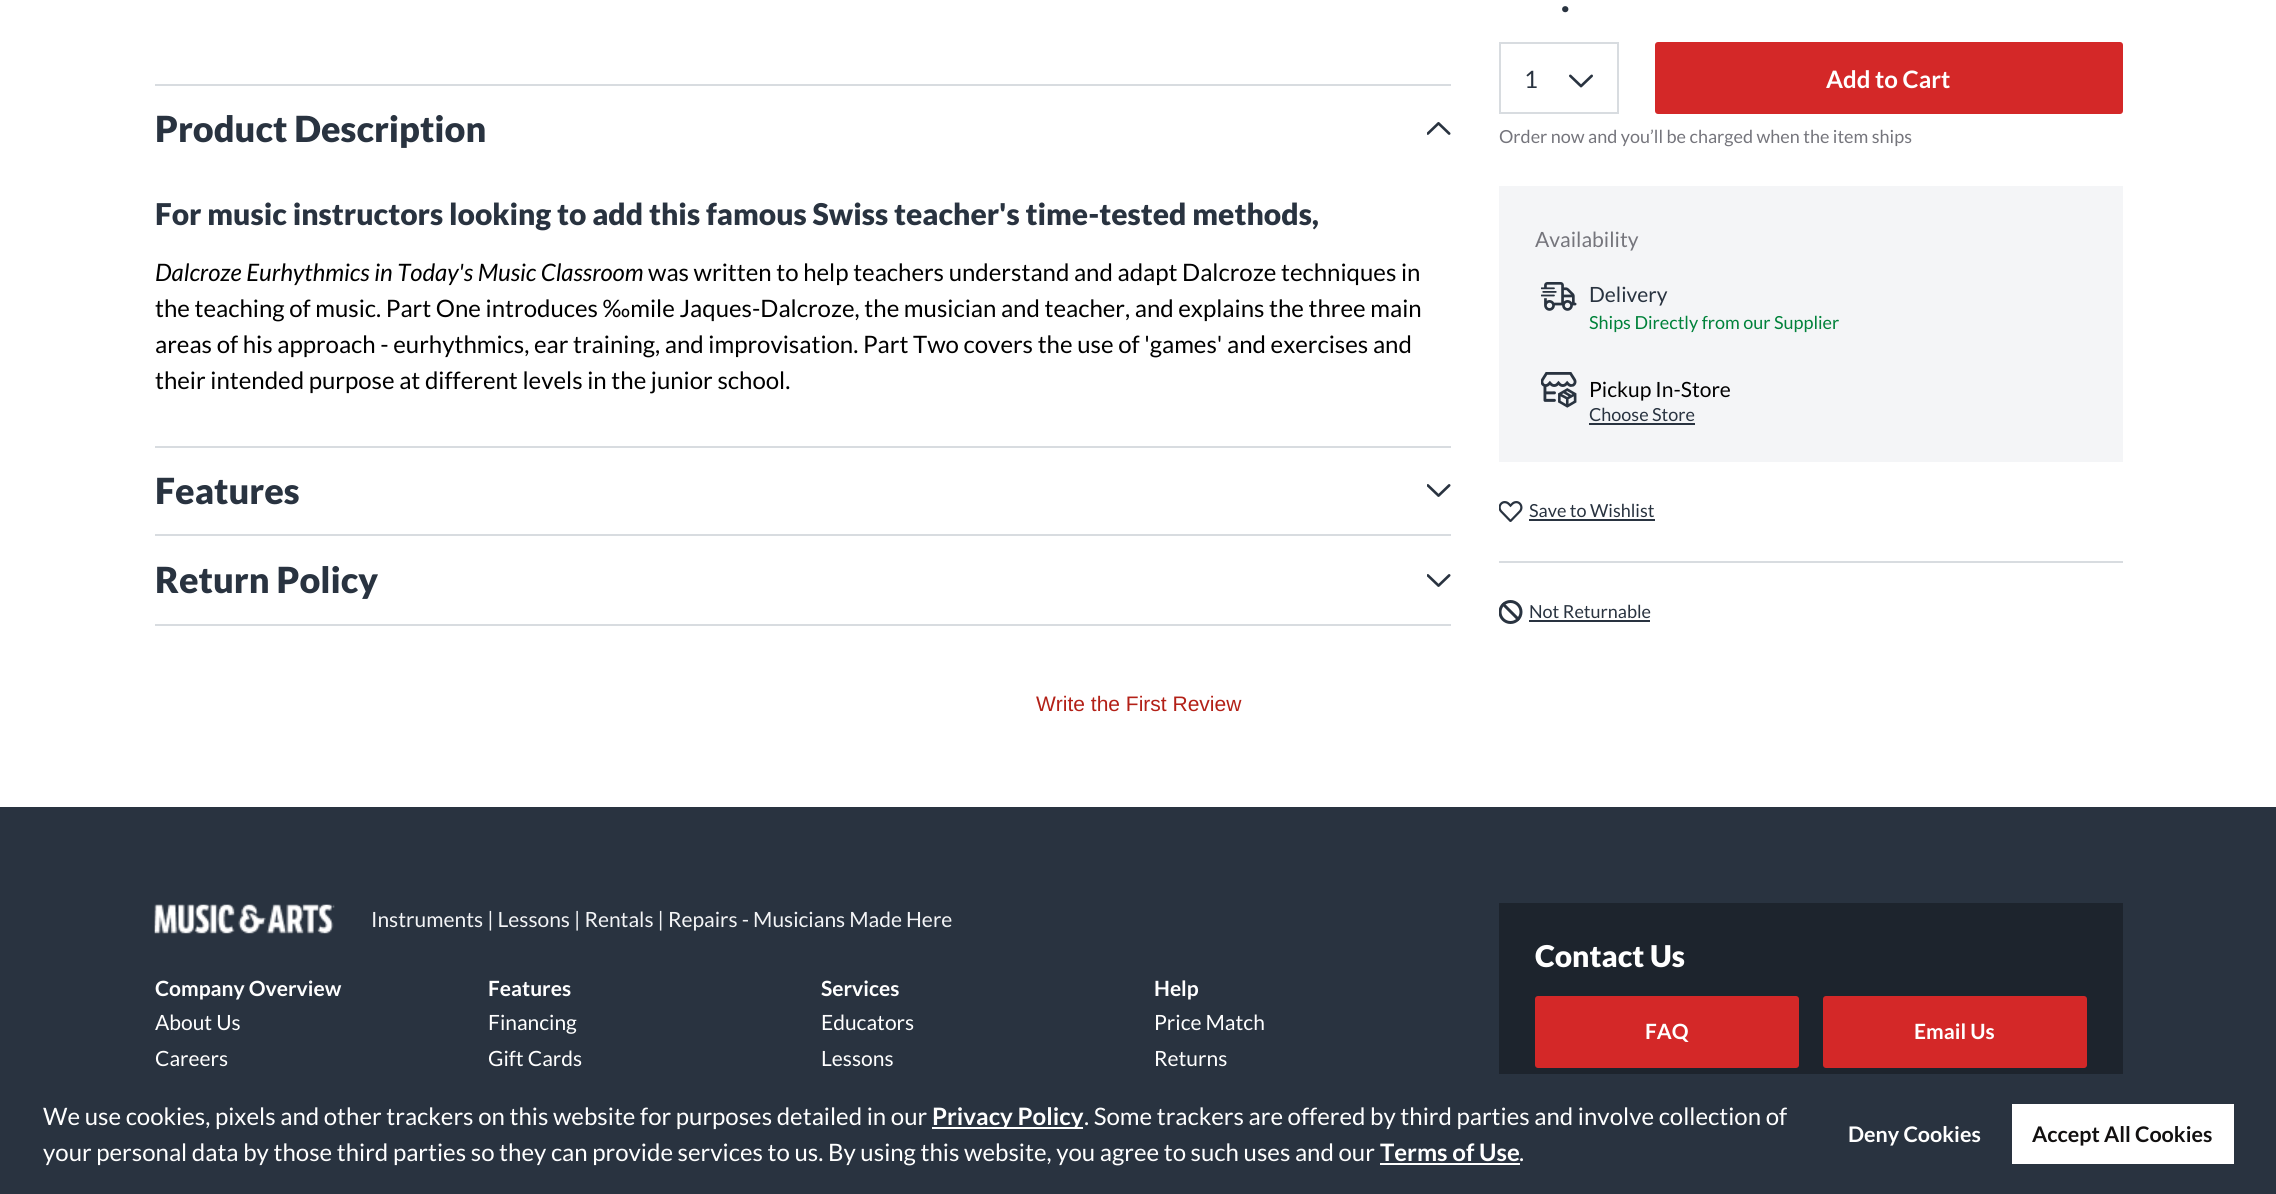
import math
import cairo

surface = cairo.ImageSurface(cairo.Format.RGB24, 2276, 1194)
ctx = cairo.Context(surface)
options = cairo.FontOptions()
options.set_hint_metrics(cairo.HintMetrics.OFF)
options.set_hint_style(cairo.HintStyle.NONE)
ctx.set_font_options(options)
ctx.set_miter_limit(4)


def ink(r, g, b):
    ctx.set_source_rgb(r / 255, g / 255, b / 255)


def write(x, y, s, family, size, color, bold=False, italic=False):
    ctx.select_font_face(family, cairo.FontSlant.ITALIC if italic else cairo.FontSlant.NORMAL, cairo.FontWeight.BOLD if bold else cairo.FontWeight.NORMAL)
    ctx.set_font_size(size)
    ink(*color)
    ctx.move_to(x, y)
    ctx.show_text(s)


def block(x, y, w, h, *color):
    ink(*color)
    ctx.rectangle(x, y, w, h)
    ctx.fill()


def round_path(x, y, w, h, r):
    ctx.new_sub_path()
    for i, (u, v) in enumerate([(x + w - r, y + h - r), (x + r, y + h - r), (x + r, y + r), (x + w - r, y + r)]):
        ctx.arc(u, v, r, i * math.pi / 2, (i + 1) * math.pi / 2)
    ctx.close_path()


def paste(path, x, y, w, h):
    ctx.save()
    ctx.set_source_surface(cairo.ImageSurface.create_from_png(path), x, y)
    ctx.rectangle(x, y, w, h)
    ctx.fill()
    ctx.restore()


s1 = dict(family="Lato Black", size=36, color=(41, 51, 64))
s2 = dict(family="Lato Black", size=30, color=(41, 51, 64))
s3 = dict(family="Lato", size=24, color=(0, 0, 0), italic=True)
s4 = dict(family="Lato", size=24, color=(0, 0, 0))
s5 = dict(family="Lato", size=24, color=(41, 51, 64))
s6 = dict(family="Lato", size=24, color=(255, 255, 255), bold=True)
s7 = dict(family="Lato", size=18, color=(117, 117, 124))
s8 = dict(family="Lato", size=21, color=(117, 117, 124))
s9 = dict(family="Lato", size=21, color=(41, 51, 64))
s10 = dict(family="Lato", size=18, color=(0, 130, 58))
s11 = dict(family="Lato", size=21, color=(0, 0, 0))
s12 = dict(family="Lato", size=18, color=(41, 51, 64))
s13 = dict(family="Liberation Sans", size=21, color=(179, 32, 23))
s14 = dict(family="Lato", size=21, color=(243, 244, 246))
s15 = dict(family="Lato", size=21, color=(255, 255, 255), bold=True)
s16 = dict(family="Lato", size=21, color=(255, 255, 255))
s17 = dict(family="Lato Black", size=30, color=(255, 255, 255))
s18 = dict(family="Lato", size=24, color=(255, 255, 255))
s19 = dict(family="Lato", size=21.5, color=(255, 255, 255), bold=True)
s20 = dict(family="Lato", size=21.5, color=(18, 16, 16), bold=True)

ink(255, 255, 255)
ctx.paint()
block(155, 84, 1296, 2, 216, 220, 224)
block(155, 446, 1296, 2, 216, 220, 224)
write(155, 142, "Product Description", **s1)
paste("pic1.png", 1427, 122, 24, 13)
write(155, 225, "For music instructors looking to add this famous Swiss teacher's time-tested methods,", **s2)
write(155, 281, "Dalcroze Eurhythmics in Today's Music Classroom", **s3)
write(648, 281, "was written to help teachers understand and adapt Dalcroze techniques in", **s4)
write(155, 317, "the teaching of music. Part One introduces ‰mile Jaques-Dalcroze, the musician and teacher, and explains the three main", **s4)
write(155, 353, "areas of his approach - eurhythmics, ear training, and improvisation. Part Two covers the use of 'games' and exercises and", **s4)
write(155, 389, "their intended purpose at different levels in the junior school.", **s4)
block(155, 534, 1296, 2, 216, 220, 224)
write(155, 504, "Features", **s1)
paste("pic2.png", 1427, 484, 24, 13)
block(155, 624, 1296, 2, 216, 220, 224)
write(155, 593, "Return Policy", **s1)
paste("pic2.png", 1427, 574, 24, 13)
write(1561, 12, ".", **s1)
ctx.rectangle(1500, 43, 118, 70)
ink(216, 220, 224)
ctx.stroke()
write(1524, 88, "1", **s5)
paste("pic3.png", 1569, 74, 24, 14)
ink(212, 40, 40)
round_path(1655, 42, 468, 72, 3)
ctx.fill()
write(1826, 88, "Add to Cart", **s6)
write(1499, 143, "Order now and you’ll be charged when the item ships", **s7)
block(1499, 186, 624, 276, 244, 245, 247)
write(1535, 247, "Availability", **s8)
paste("pic4.png", 1541, 282, 36, 29)
write(1589, 302, "Delivery", **s9)
write(1589, 329, "Ships Directly from our Supplier", **s10)
paste("pic5.png", 1541, 372, 36, 36)
write(1589, 397, "Pickup In-Store", **s11)
write(1589, 421, "Choose Store", **s12)
block(1589, 423, 106, 2, 41, 51, 64)
paste("pic6.png", 1499, 501, 24, 21)
write(1529, 517, "Save to Wishlist", **s12)
block(1529, 519, 126, 2, 41, 51, 64)
block(1499, 561, 624, 2, 216, 220, 224)
ctx.save()
ctx.rectangle(1499, 600, 24, 24)
ctx.clip()
ctx.arc(1510.5, 612, 10.5, 0, 2 * math.pi)
ink(41, 51, 64)
ctx.set_line_width(3)
ctx.stroke()
ctx.restore()
ctx.new_path()
ctx.move_to(1502.5, 603.5)
ctx.line_to(1519, 620)
ink(41, 51, 64)
ctx.set_line_width(3)
ctx.stroke()
write(1529, 618, "Not Returnable", **s12)
block(1529, 620, 121, 2, 41, 51, 64)
write(1036, 711, "Write the First Review", **s13)
block(0, 807, 2276, 387, 41, 51, 64)
paste("pic7.png", 154, 904, 181, 30)
write(371, 927, "Instruments | Lessons | Rentals | Repairs - Musicians Made Here", **s14)
write(155, 996, "Company Overview", **s15)
write(155, 1030, "About Us", **s16)
write(155, 1066, "Careers", **s16)
write(488, 996, "Features", **s15)
write(488, 1030, "Financing", **s16)
write(488, 1066, "Gift Cards", **s16)
write(821, 996, "Services", **s15)
write(821, 1030, "Educators", **s16)
write(821, 1066, "Lessons", **s16)
write(1154, 996, "Help", **s15)
write(1154, 1030, "Price Match", **s16)
write(1154, 1066, "Returns", **s16)
block(1499, 903, 624, 171, 29, 36, 45)
write(1535, 967, "Contact Us", **s17)
ink(212, 40, 40)
round_path(1535, 996, 264, 72, 3)
ctx.fill()
write(1645, 1039, "FAQ", **s15)
ink(212, 40, 40)
round_path(1823, 996, 264, 72, 3)
ctx.fill()
write(1914, 1039, "Email Us", **s15)
write(43, 1125, "We use cookies, pixels and other trackers on this website for purposes detailed in our", **s18)
block(932, 1127, 151, 2, 255, 255, 255)
write(932, 1125, "Privacy Policy", **s6)
write(1084, 1125, ". Some trackers are offered by third parties and involve collection of", **s18)
write(43, 1161, "your personal data by those third parties so they can provide services to us. By using this website, you agree to such uses and our", **s18)
write(1380, 1161, "Terms of Use", **s6)
block(1380, 1163, 140, 2, 255, 255, 255)
write(1519, 1161, ".", **s18)
write(1848, 1142, "Deny Cookies", **s19)
block(2012, 1104, 222, 60, 255, 255, 255)
write(2032, 1142, "Accept All Cookies", **s20)
surface.write_to_png("screenshot.png")
